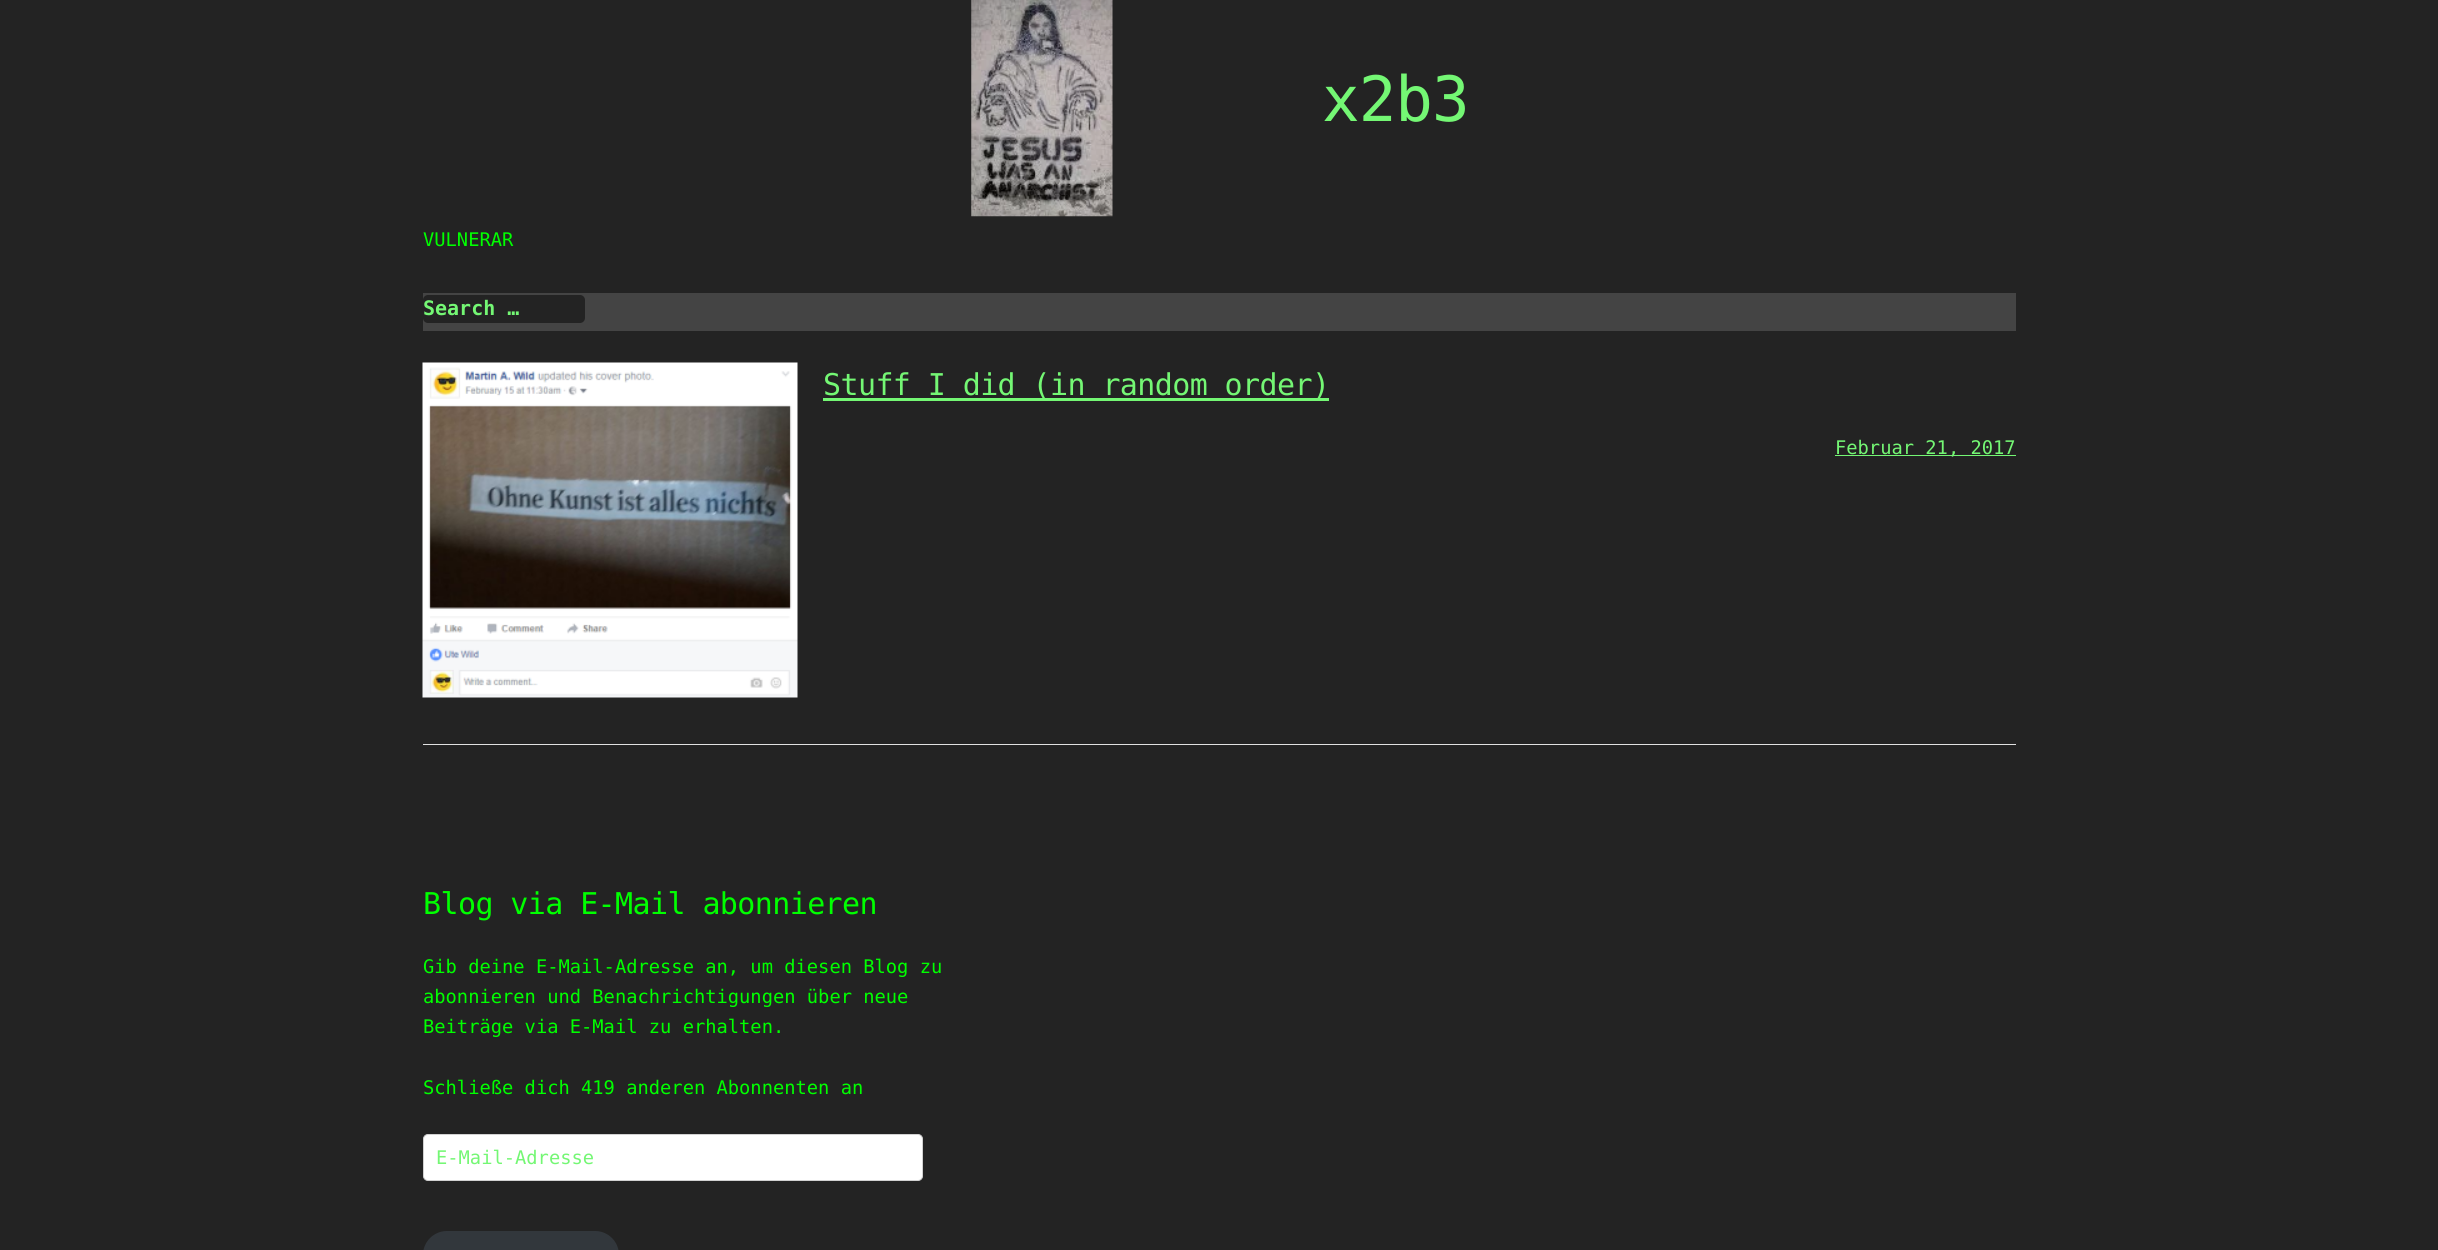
import math
import cairo

surface = cairo.ImageSurface(cairo.Format.RGB24, 2438, 1250)
ctx = cairo.Context(surface)
options = cairo.FontOptions()
options.set_hint_metrics(cairo.HintMetrics.OFF)
options.set_hint_style(cairo.HintStyle.NONE)
ctx.set_font_options(options)
ctx.set_miter_limit(4)


def ink(r, g, b):
    ctx.set_source_rgb(r / 255, g / 255, b / 255)


def write(x, y, s, family, size, color, bold=False, italic=False):
    ctx.select_font_face(family, cairo.FontSlant.ITALIC if italic else cairo.FontSlant.NORMAL, cairo.FontWeight.BOLD if bold else cairo.FontWeight.NORMAL)
    ctx.set_font_size(size)
    ink(*color)
    ctx.move_to(x, y)
    ctx.show_text(s)


def write_spaced(x, y, s, letter, word):
    ctx.move_to(x, y)
    for ch in s:
        ctx.show_text(ch)
        ctx.rel_move_to(letter + word * (ch == ' '), 0)


def block(x, y, w, h, *color):
    ink(*color)
    ctx.rectangle(x, y, w, h)
    ctx.fill()


def round_path(x, y, w, h, r):
    ctx.new_sub_path()
    for i, (u, v) in enumerate([(x + w - r, y + h - r), (x + r, y + h - r), (x + r, y + r), (x + w - r, y + r)]):
        ctx.arc(u, v, r, i * math.pi / 2, (i + 1) * math.pi / 2)
    ctx.close_path()


def paste(path, x, y, w, h):
    ctx.save()
    ctx.set_source_surface(cairo.ImageSurface.create_from_png(path), x, y)
    ctx.rectangle(x, y, w, h)
    ctx.fill()
    ctx.restore()


s1 = dict(family="DejaVu Sans Mono", size=18.75, color=(0, 255, 0))
s2 = dict(family="DejaVu Sans Mono", size=20, color=(116, 247, 116), bold=True)
s3 = dict(family="DejaVu Sans Mono", size=18.75, color=(116, 247, 116))

ink(35, 35, 35)
ctx.paint()
paste("pic1.png", 971, 0, 142, 217)
ctx.select_font_face("DejaVu Sans Mono")
ctx.set_font_size(62.5)
ink(116, 247, 116)
write_spaced(1322, 121, "x2b3", -1, 0)
write(423, 246, "VULNERAR", **s1)
block(423, 293, 1593, 38, 68, 68, 68)
ink(35, 35, 35)
round_path(423, 295, 162, 28, 5)
ctx.fill()
write(423, 315, "Search …", **s2)
paste("pic2.png", 422, 362, 376, 336)
block(823, 398, 506, 3, 116, 247, 116)
ctx.select_font_face("DejaVu Sans Mono")
ctx.set_font_size(30)
write_spaced(823, 395, "Stuff I did (in random order)", -0.6, 0)
block(1835, 455, 181, 1, 116, 247, 116)
write(1835, 454, "Februar 21, 2017", **s3)
block(423, 744, 1593, 1, 225, 225, 225)
ctx.set_font_size(30)
ink(0, 255, 0)
write_spaced(423, 914, "Blog via E-Mail abonnieren", -0.6, 0)
write(423, 973, "Gib deine E-Mail-Adresse an, um diesen Blog zu", **s1)
write(423, 1003, "abonnieren und Benachrichtigungen über neue", **s1)
write(423, 1033, "Beiträge via E-Mail zu erhalten.", **s1)
write(423, 1094, "Schließe dich 419 anderen Abonnenten an", **s1)
ink(255, 255, 255)
round_path(423.5, 1134.5, 499, 46, 4.5)
ctx.fill_preserve()
ink(209, 209, 209)
ctx.set_line_width(1)
ctx.stroke()
write(436, 1164, "E-Mail-Adresse", **s3)
ink(50, 55, 60)
round_path(423, 1231, 196, 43, 24)
ctx.fill()
surface.write_to_png("screenshot.png")
